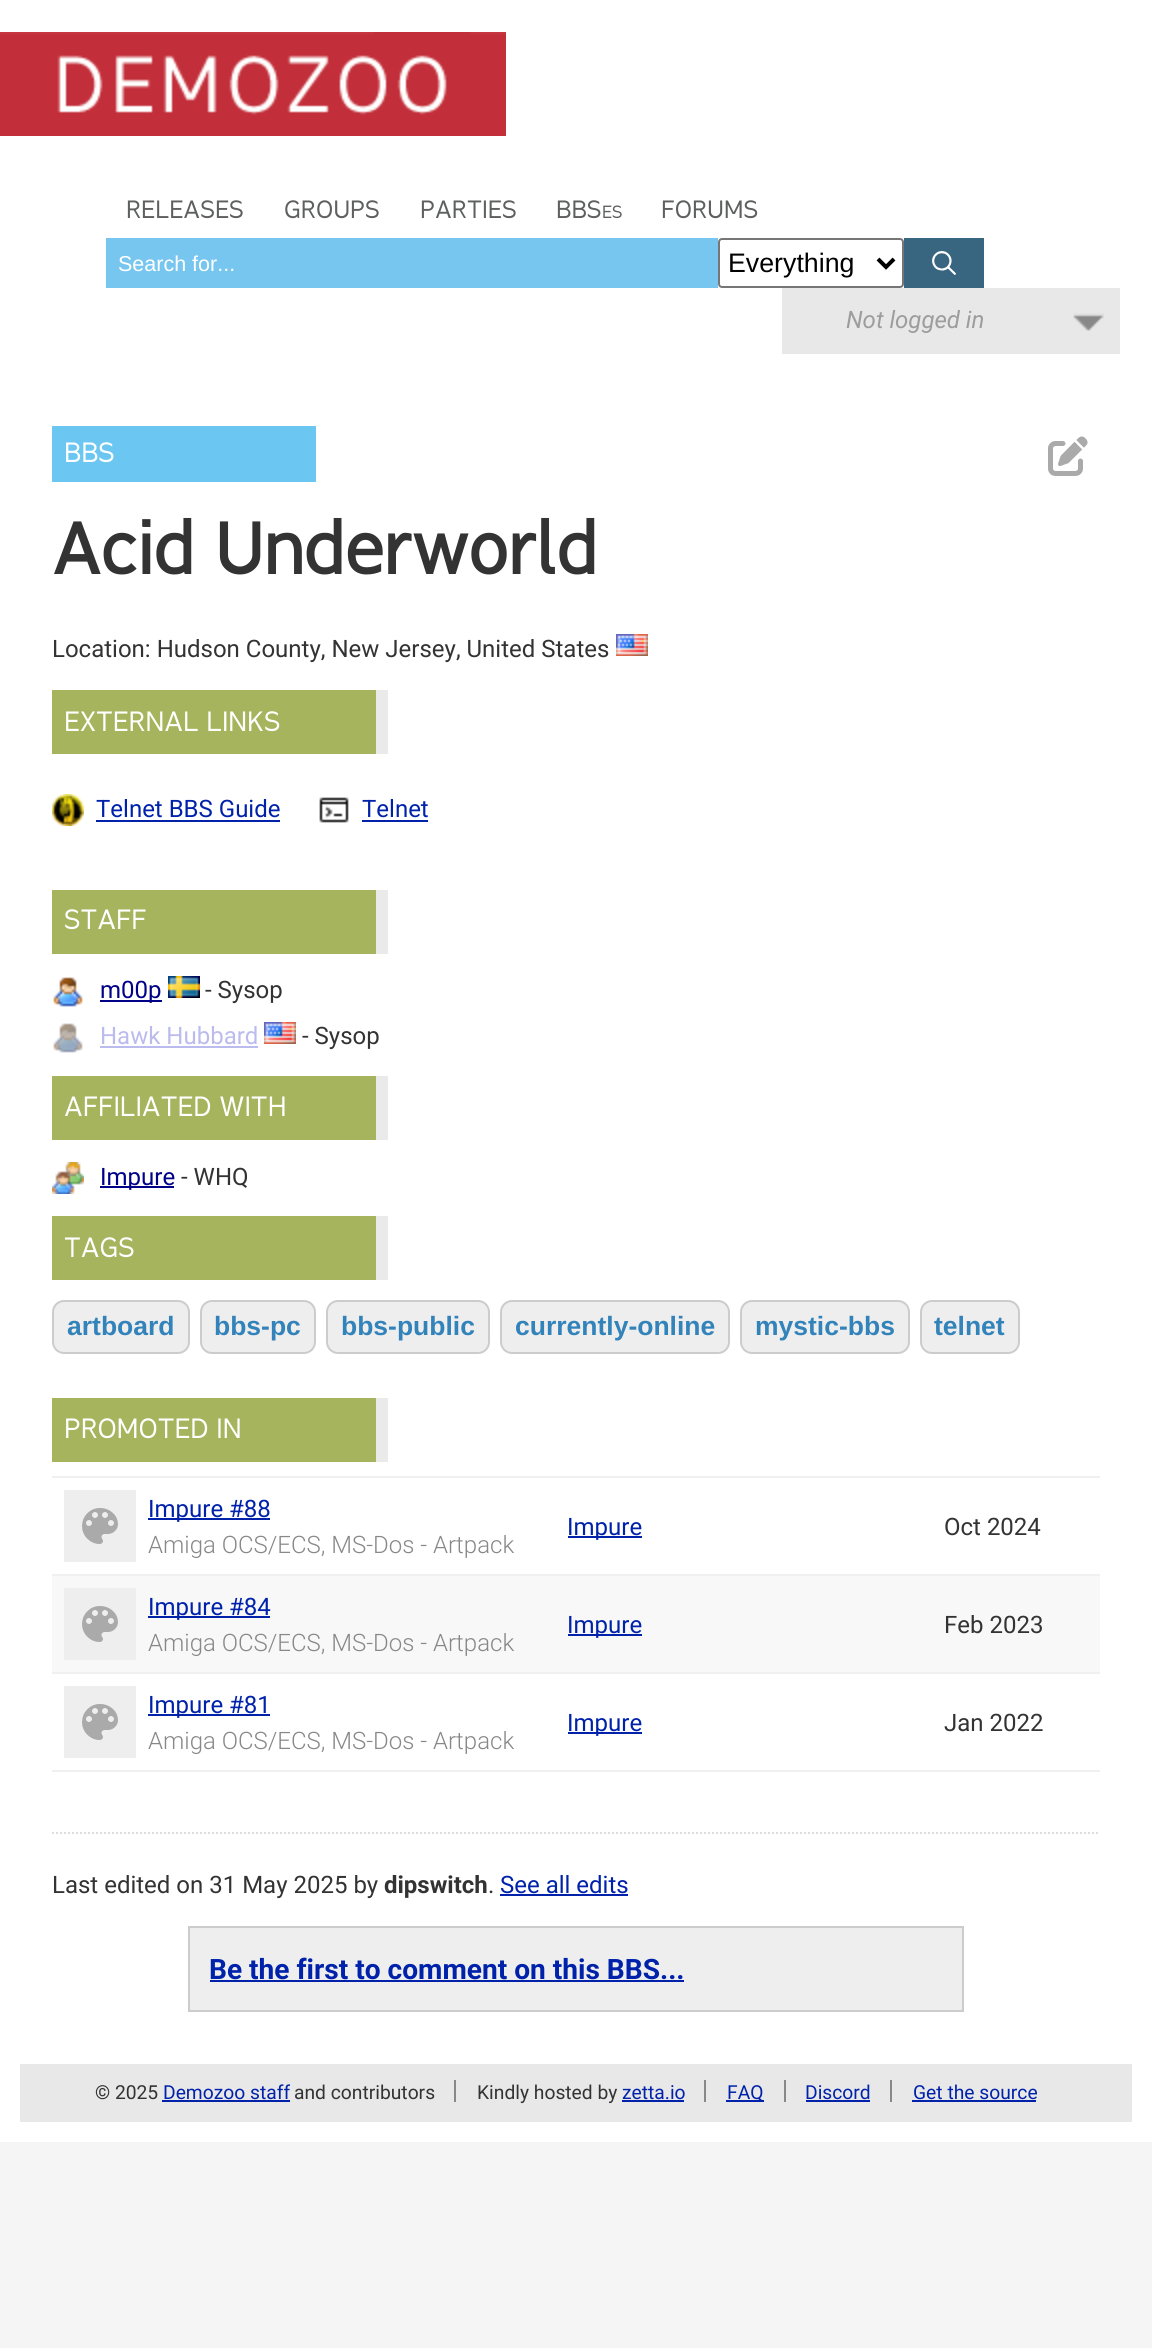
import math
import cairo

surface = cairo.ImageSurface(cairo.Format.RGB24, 1152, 2348)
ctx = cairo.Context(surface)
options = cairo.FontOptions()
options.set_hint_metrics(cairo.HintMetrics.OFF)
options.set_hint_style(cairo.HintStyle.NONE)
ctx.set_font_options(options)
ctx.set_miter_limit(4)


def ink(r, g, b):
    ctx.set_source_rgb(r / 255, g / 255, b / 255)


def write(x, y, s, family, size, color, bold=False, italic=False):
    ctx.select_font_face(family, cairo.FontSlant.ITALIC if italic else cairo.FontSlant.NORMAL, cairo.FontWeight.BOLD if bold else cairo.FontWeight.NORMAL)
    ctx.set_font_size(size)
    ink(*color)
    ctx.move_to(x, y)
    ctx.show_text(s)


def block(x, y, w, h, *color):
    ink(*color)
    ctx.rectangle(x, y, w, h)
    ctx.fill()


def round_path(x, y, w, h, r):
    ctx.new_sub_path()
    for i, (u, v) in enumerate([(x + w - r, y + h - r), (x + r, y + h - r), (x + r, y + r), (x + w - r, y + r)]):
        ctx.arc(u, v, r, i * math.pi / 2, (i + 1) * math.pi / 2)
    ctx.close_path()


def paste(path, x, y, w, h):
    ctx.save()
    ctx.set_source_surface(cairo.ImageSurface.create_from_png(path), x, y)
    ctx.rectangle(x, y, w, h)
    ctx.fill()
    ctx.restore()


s1 = dict(family="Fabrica", size=24, color=(94, 95, 95))
s2 = dict(family="Fabrica", size=17, color=(94, 95, 95))
s3 = dict(family="Liberation Sans", size=21.5, color=(255, 255, 255))
s4 = dict(family="Liberation Sans", size=26.75, color=(0, 0, 0))
s5 = dict(family="Roboto", size=24, color=(157, 157, 157), italic=True)
s6 = dict(family="Fabrica", size=26.75, color=(255, 255, 255))
s7 = dict(family="Fabrica", size=69.25, color=(51, 51, 51), bold=True)
s8 = dict(family="Roboto", size=24, color=(51, 51, 51))
s9 = dict(family="Roboto", size=24, color=(0, 34, 170))
s10 = dict(family="Roboto", size=24, color=(0, 0, 136))
s11 = dict(family="Roboto", size=24, color=(187, 187, 238))
s12 = dict(family="Liberation Sans", size=26.5, color=(51, 131, 187), bold=True)
s13 = dict(family="Roboto Light", size=24, color=(136, 136, 136))
s14 = dict(family="Roboto", size=24, color=(51, 51, 51), bold=True)
s15 = dict(family="Roboto", size=28.1, color=(0, 34, 170), bold=True)
s16 = dict(family="Roboto", size=19.25, color=(51, 51, 51))
s17 = dict(family="Roboto", size=19.25, color=(0, 34, 170))

ink(245, 245, 245)
ctx.paint()
block(0, 0, 1152, 2044, 255, 255, 255)
block(0, 115, 506, 21, 195, 46, 59)
paste("pic1.png", 0, 32, 506, 83)
write(126, 218, "RELEASES", **s1)
write(284, 218, "GROUPS", **s1)
write(420, 218, "PARTIES", **s1)
write(556, 218, "BBS", **s1)
write(602, 218, "ES", **s2)
write(661, 218, "FORUMS", **s1)
block(106, 238, 612, 50, 119, 198, 239)
write(118, 271, "Search for...", **s3)
round_path(719, 239, 184, 48, 3)
ink(118, 118, 118)
ctx.stroke()
ctx.new_path()
ctx.move_to(878, 259)
ctx.line_to(886, 267)
ctx.line_to(894, 259)
ink(0, 0, 0)
ctx.set_line_width(4)
ctx.stroke()
write(728, 272, "Everything", **s4)
block(904, 238, 80, 50, 56, 101, 128)
paste("pic2.png", 932, 251, 24, 24)
block(782, 288, 338, 66, 232, 232, 232)
paste("pic3.png", 1073, 313, 31, 18)
write(846, 328, "Not logged in", **s5)
block(52, 426, 264, 56, 107, 199, 241)
write(64, 462, "BBS", **s6)
paste("pic4.png", 1048, 436, 40, 40)
write(52, 574, "Acid Underworld", **s7)
write(52, 657, "Location: Hudson County, New Jersey, United States", **s8)
paste("pic5.png", 616, 634, 32, 22)
block(52, 690, 324, 64, 165, 180, 93)
block(376, 690, 12, 64, 234, 234, 234)
write(64, 731, "EXTERNAL LINKS", **s6)
paste("pic6.png", 52, 794, 32, 32)
write(96, 817, "Telnet BBS Guide", **s9)
block(96, 820, 184, 2, 0, 34, 170)
paste("pic7.png", 319, 797, 30, 26)
write(362, 817, "Telnet", **s9)
block(362, 820, 66, 2, 0, 34, 170)
block(52, 890, 324, 64, 165, 180, 93)
block(376, 890, 12, 64, 234, 234, 234)
write(64, 929, "STAFF", **s6)
paste("pic8.png", 53, 977, 30, 30)
block(100, 1000, 62, 2, 0, 0, 136)
write(100, 998, "m00p", **s10)
paste("pic9.png", 168, 976, 32, 22)
write(205, 998, "- Sysop", **s8)
paste("pic10.png", 53, 1023, 30, 30)
write(100, 1044, "Hawk Hubbard", **s11)
block(100, 1046, 158, 2, 187, 187, 238)
paste("pic5.png", 264, 1022, 32, 22)
write(302, 1044, "- Sysop", **s8)
block(52, 1076, 324, 64, 165, 180, 93)
block(376, 1076, 12, 64, 234, 234, 234)
write(64, 1116, "AFFILIATED WITH", **s6)
paste("pic11.png", 52, 1162, 32, 32)
block(100, 1186, 74, 2, 0, 0, 136)
write(100, 1185, "Impure", **s10)
write(181, 1185, "- WHQ", **s8)
block(52, 1216, 324, 64, 165, 180, 93)
block(376, 1216, 12, 64, 234, 234, 234)
write(64, 1257, "TAGS", **s6)
ink(238, 238, 238)
round_path(53, 1301, 136, 52, 11)
ctx.fill_preserve()
ink(204, 204, 204)
ctx.set_line_width(2)
ctx.stroke()
write(67, 1335, "artboard", **s12)
ink(238, 238, 238)
round_path(201, 1301, 114, 52, 11)
ctx.fill_preserve()
ink(204, 204, 204)
ctx.stroke()
write(214, 1335, "bbs-pc", **s12)
ink(238, 238, 238)
round_path(327, 1301, 162, 52, 11)
ctx.fill_preserve()
ink(204, 204, 204)
ctx.stroke()
write(341, 1335, "bbs-public", **s12)
ink(238, 238, 238)
round_path(501, 1301, 228, 52, 11)
ctx.fill_preserve()
ink(204, 204, 204)
ctx.stroke()
write(515, 1335, "currently-online", **s12)
ink(238, 238, 238)
round_path(741, 1301, 168, 52, 11)
ctx.fill_preserve()
ink(204, 204, 204)
ctx.stroke()
write(755, 1335, "mystic-bbs", **s12)
ink(238, 238, 238)
round_path(921, 1301, 98, 52, 11)
ctx.fill_preserve()
ink(204, 204, 204)
ctx.stroke()
write(934, 1335, "telnet", **s12)
block(52, 1398, 324, 64, 165, 180, 93)
block(376, 1398, 12, 64, 234, 234, 234)
write(64, 1438, "PROMOTED IN", **s6)
block(52, 1476, 1048, 2, 240, 240, 240)
block(64, 1490, 72, 72, 238, 238, 238)
paste("pic12.png", 82, 1508, 36, 36)
block(148, 1518, 122, 2, 0, 34, 170)
write(148, 1517, "Impure #88", **s9)
write(148, 1553, "Amiga OCS/ECS, MS-Dos - Artpack", **s13)
block(568, 1536, 74, 2, 0, 34, 170)
write(567, 1535, "Impure", **s9)
write(944, 1535, "Oct 2024", **s8)
block(52, 1576, 1048, 96, 248, 248, 248)
block(52, 1574, 1048, 2, 240, 240, 240)
block(64, 1588, 72, 72, 238, 238, 238)
paste("pic13.png", 82, 1606, 36, 36)
block(148, 1616, 122, 2, 0, 34, 170)
write(148, 1615, "Impure #84", **s9)
write(148, 1651, "Amiga OCS/ECS, MS-Dos - Artpack", **s13)
block(568, 1634, 74, 2, 0, 34, 170)
write(567, 1633, "Impure", **s9)
write(944, 1633, "Feb 2023", **s8)
block(52, 1672, 1048, 2, 240, 240, 240)
block(52, 1770, 1048, 2, 240, 240, 240)
block(64, 1686, 72, 72, 238, 238, 238)
paste("pic13.png", 82, 1704, 36, 36)
block(148, 1714, 122, 2, 0, 34, 170)
write(148, 1713, "Impure #81", **s9)
write(148, 1749, "Amiga OCS/ECS, MS-Dos - Artpack", **s13)
block(568, 1732, 74, 2, 0, 34, 170)
write(567, 1731, "Impure", **s9)
write(944, 1731, "Jan 2022", **s8)
ctx.new_path()
ctx.move_to(52, 1833)
ctx.line_to(1100, 1833)
ink(221, 221, 221)
ctx.set_dash([2, 2])
ctx.stroke()
write(52, 1893, "Last edited on 31 May 2025 by", **s8)
write(384, 1893, "dipswitch", **s14)
write(488, 1893, ".", **s8)
write(500, 1893, "See all edits", **s9)
block(500, 1894, 128, 2, 0, 34, 170)
ink(238, 238, 238)
ctx.rectangle(189, 1927, 774, 84)
ctx.fill_preserve()
ink(204, 204, 204)
ctx.set_dash([])
ctx.stroke()
write(209, 1979, "Be the first to comment on this BBS...", **s15)
block(210, 1980, 474, 2, 0, 34, 170)
ink(232, 232, 232)
ctx.rectangle(10, 2054, 1132, 78)
ctx.fill_preserve()
ink(255, 255, 255)
ctx.set_line_width(20)
ctx.stroke()
write(95, 2099, "© 2025", **s16)
write(163, 2099, "Demozoo staff", **s17)
block(162, 2100, 128, 2, 0, 34, 170)
write(294, 2099, "and contributors", **s16)
write(477, 2099, "Kindly hosted by", **s16)
block(454, 2080, 2, 22, 136, 136, 136)
write(622, 2099, "zetta.io", **s17)
block(622, 2100, 62, 2, 0, 34, 170)
block(726, 2100, 38, 2, 0, 34, 170)
write(727, 2099, "FAQ", **s17)
block(704, 2080, 2, 22, 136, 136, 136)
write(805, 2099, "Discord", **s17)
block(784, 2080, 2, 22, 136, 136, 136)
block(806, 2100, 64, 2, 0, 34, 170)
write(913, 2099, "Get the source", **s17)
block(890, 2080, 2, 22, 136, 136, 136)
block(912, 2100, 124, 2, 0, 34, 170)
surface.write_to_png("screenshot.png")
